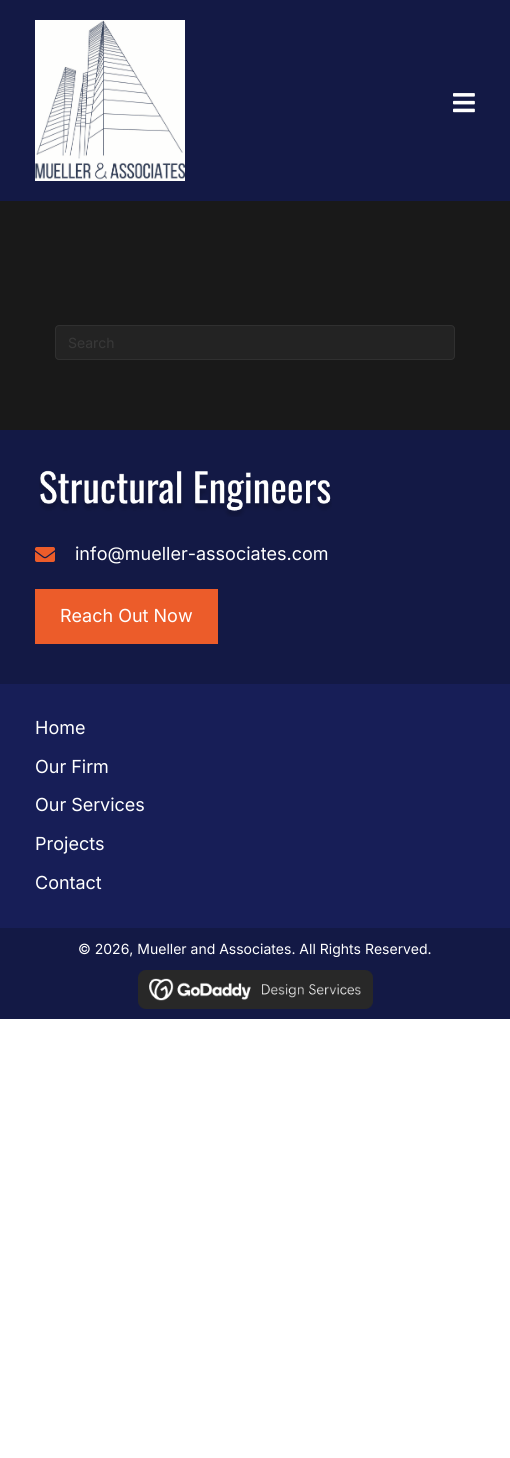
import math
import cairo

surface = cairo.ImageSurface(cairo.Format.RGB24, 510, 1458)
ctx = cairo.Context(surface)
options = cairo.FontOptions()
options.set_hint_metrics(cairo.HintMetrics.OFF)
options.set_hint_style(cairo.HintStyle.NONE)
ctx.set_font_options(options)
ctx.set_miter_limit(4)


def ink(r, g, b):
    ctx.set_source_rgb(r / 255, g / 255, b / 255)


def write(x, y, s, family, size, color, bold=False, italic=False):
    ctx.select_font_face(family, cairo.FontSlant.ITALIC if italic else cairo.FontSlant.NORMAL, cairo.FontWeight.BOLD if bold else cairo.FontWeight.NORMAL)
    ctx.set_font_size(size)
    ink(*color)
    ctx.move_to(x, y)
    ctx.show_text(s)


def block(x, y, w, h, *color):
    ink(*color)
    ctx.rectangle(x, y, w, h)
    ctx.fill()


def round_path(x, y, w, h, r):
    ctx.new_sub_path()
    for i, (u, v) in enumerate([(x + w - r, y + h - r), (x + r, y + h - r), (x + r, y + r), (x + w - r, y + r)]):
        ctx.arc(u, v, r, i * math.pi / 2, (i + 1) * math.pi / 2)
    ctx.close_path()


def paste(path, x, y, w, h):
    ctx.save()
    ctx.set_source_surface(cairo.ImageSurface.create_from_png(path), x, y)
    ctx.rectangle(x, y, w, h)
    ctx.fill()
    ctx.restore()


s1 = dict(family="Inter", size=14, color=(56, 56, 56))
s2 = dict(family="Inter", size=18, color=(255, 255, 255))
s3 = dict(family="Inter", size=14, color=(255, 255, 255))

ink(255, 255, 255)
ctx.paint()
block(0, 0, 510, 201, 19, 25, 69)
paste("pic1.png", 35, 20, 150, 161)
paste("pic2.png", 453, 93, 22, 20)
block(0, 201, 510, 229, 25, 25, 25)
ink(35, 35, 35)
round_path(55.5, 325.5, 399, 34, 3.5)
ctx.fill_preserve()
ink(48, 48, 48)
ctx.set_line_width(1)
ctx.stroke()
write(68, 348, "Search", **s1)
block(0, 430, 510, 254, 19, 25, 69)
paste("pic3.png", 39, 470, 293, 47)
paste("pic4.png", 35, 547, 20, 15)
write(75, 560, "info@mueller-associates.com", **s2)
block(35, 589, 183, 55, 236, 92, 42)
write(60, 622, "Reach Out Now", **s2)
block(0, 684, 510, 244, 23, 30, 87)
write(35, 734, "Home", **s2)
write(35, 773, "Our Firm", **s2)
write(35, 811, "Our Services", **s2)
write(35, 850, "Projects", **s2)
write(35, 889, "Contact", **s2)
block(0, 928, 510, 91, 19, 25, 69)
write(78, 954, "© 2026, Mueller and Associates. All Rights Reserved.", **s3)
paste("pic5.png", 138, 970, 235, 39)
surface.write_to_png("screenshot.png")
